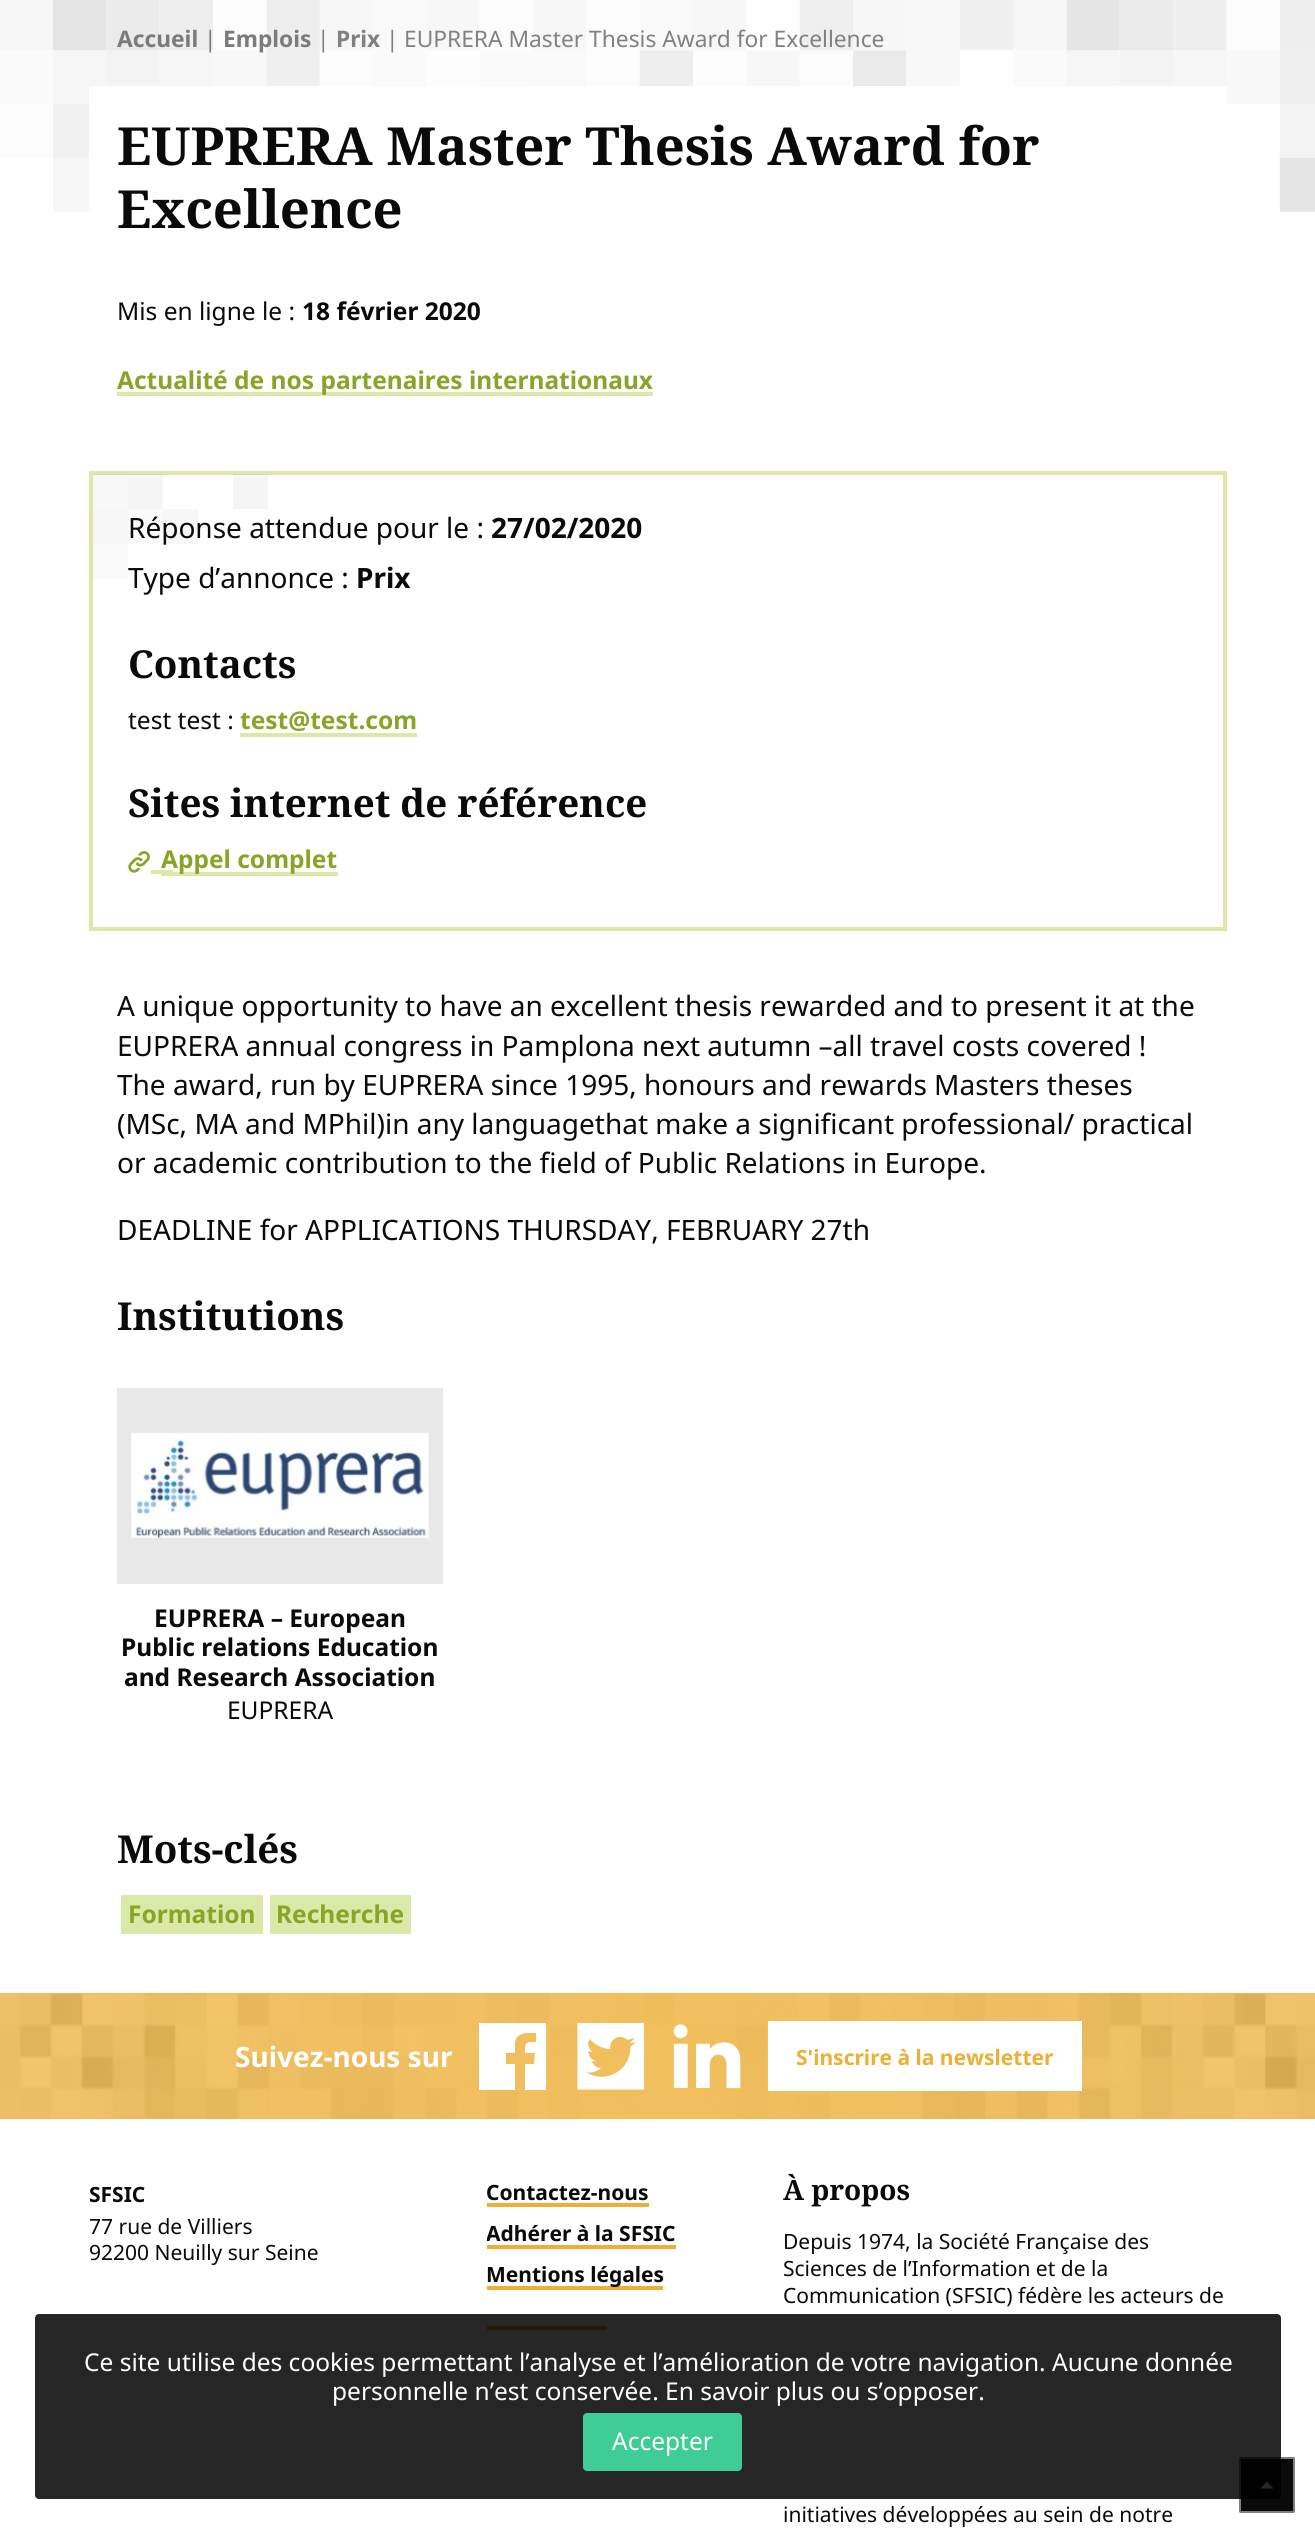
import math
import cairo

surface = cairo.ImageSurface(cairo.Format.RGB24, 1315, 2534)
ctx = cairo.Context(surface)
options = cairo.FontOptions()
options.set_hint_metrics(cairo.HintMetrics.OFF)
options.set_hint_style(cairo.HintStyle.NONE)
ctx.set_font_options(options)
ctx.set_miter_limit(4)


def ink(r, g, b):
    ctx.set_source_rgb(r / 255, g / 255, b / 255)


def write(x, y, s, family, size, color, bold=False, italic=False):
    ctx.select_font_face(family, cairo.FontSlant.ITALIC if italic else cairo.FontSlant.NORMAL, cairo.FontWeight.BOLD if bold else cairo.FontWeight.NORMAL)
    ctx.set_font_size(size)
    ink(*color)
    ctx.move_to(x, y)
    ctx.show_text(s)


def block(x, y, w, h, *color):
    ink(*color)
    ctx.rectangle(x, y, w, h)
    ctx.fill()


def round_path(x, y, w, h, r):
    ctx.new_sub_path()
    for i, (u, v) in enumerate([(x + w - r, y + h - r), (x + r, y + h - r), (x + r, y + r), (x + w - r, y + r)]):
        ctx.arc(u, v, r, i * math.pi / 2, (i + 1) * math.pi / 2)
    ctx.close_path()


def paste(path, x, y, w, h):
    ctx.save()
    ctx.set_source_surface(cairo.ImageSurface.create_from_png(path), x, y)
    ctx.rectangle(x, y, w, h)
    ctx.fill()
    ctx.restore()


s1 = dict(family="Noto Sans", size=22.75, color=(123, 123, 123), bold=True)
s2 = dict(family="Noto Sans", size=22.75, color=(123, 123, 123))
s3 = dict(family="Noto Sans", size=22.75, color=(129, 129, 129))
s4 = dict(family="Noto Sans", size=22.75, color=(129, 129, 129), bold=True)
s5 = dict(family="Noto Serif", size=52.5, color=(10, 10, 10), bold=True)
s6 = dict(family="Noto Sans", size=24.5, color=(10, 10, 10))
s7 = dict(family="Noto Sans", size=24.5, color=(10, 10, 10), bold=True)
s8 = dict(family="Noto Sans", size=24.5, color=(136, 165, 39), bold=True)
s9 = dict(family="Noto Sans", size=28, color=(10, 10, 10))
s10 = dict(family="Noto Sans", size=28, color=(10, 10, 10), bold=True)
s11 = dict(family="Noto Serif", size=38.5, color=(10, 10, 10), bold=True)
s12 = dict(family="Noto Sans", size=28, color=(255, 255, 255), bold=True)
s13 = dict(family="Noto Sans", size=21, color=(239, 175, 51), bold=True)
s14 = dict(family="Noto Sans", size=21, color=(10, 10, 10), bold=True)
s15 = dict(family="Noto Sans", size=21, color=(10, 10, 10))
s16 = dict(family="Noto Serif", size=28, color=(10, 10, 10), bold=True)
s17 = dict(family="Noto Sans", size=24.5, color=(255, 255, 255))

ink(255, 255, 255)
ctx.paint()
paste("pic1.png", 0, 0, 1315, 266)
write(117, 47, "Accueil", **s1)
write(204, 47, "|", **s2)
write(223, 47, "Emplois", **s1)
write(317, 47, "|", **s3)
write(336, 47, "Prix", **s4)
write(386, 47, "|", **s3)
write(404, 47, "EUPRERA Master Thesis Award for Excellence", **s3)
block(89, 86, 1138, 180, 255, 255, 255)
write(117, 165, "EUPRERA Master Thesis Award for", **s5)
write(117, 228, "Excellence", **s5)
write(117, 320, "Mis en ligne le :", **s6)
write(302, 320, "18 février 2020", **s7)
block(117, 392, 536, 4, 218, 233, 168)
write(117, 389, "Actualité de nos partenaires internationaux", **s8)
ctx.rectangle(91, 473, 1134, 456)
ink(218, 233, 168)
ctx.set_line_width(4)
ctx.stroke()
ctx.set_source_rgba(0, 0, 0, 0.03)
ctx.rectangle(93, 474, 35, 35)
ctx.fill()
ctx.set_source_rgba(0, 0, 0, 0.04)
ctx.rectangle(128, 474, 35, 35)
ctx.fill()
ctx.rectangle(233, 474, 35, 35)
ctx.fill()
block(93, 544, 35, 35, 249, 249, 249)
block(163, 509, 35, 35, 247, 247, 247)
block(128, 509, 35, 35, 250, 250, 250)
block(93, 509, 35, 35, 246, 246, 246)
write(128, 538, "Réponse attendue pour le :", **s9)
write(491, 538, "27/02/2020", **s10)
write(128, 588, "Type d’annonce :", **s9)
write(356, 588, "Prix", **s10)
write(128, 678, "Contacts", **s11)
write(128, 729, "test test :", **s6)
write(240, 729, "test@test.com", **s8)
block(240, 733, 177, 4, 218, 233, 168)
write(128, 817, "Sites internet de référence", **s11)
block(151, 870, 22, 4, 218, 233, 168)
block(161, 872, 177, 4, 218, 233, 168)
paste("pic2.png", 128, 851, 22, 22)
write(161, 868, "Appel complet", **s8)
write(117, 1016, "A unique opportunity to have an excellent thesis rewarded and to present it at the", **s9)
write(117, 1056, "EUPRERA annual congress in Pamplona next autumn –all travel costs covered !", **s9)
write(117, 1095, "The award, run by EUPRERA since 1995, honours and rewards Masters theses", **s9)
write(117, 1134, "(MSc, MA and MPhil)in any languagethat make a significant professional/ practical", **s9)
write(117, 1173, "or academic contribution to the field of Public Relations in Europe.", **s9)
write(117, 1240, "DEADLINE for APPLICATIONS THURSDAY, FEBRUARY 27th", **s9)
write(117, 1330, "Institutions", **s11)
block(117, 1388, 326, 196, 232, 232, 232)
paste("pic3.png", 131, 1432, 298, 106)
write(154, 1627, "EUPRERA – European", **s7)
write(121, 1656, "Public relations Education", **s7)
write(124, 1686, "and Research Association", **s7)
write(227, 1719, "EUPRERA", **s6)
write(117, 1863, "Mots-clés", **s11)
block(121, 1895, 142, 39, 218, 233, 168)
write(128, 1923, "Formation", **s8)
block(270, 1895, 141, 39, 218, 233, 168)
write(276, 1923, "Recherche", **s8)
block(0, 1993, 1315, 126, 242, 191, 92)
paste("pic4.png", 0, 1993, 1315, 127)
gradient = cairo.RadialGradient(658, 2056, 0, 658, 2056, 635)
gradient.add_color_stop_rgba(0, 0.949, 0.749, 0.361, 0.95)
gradient.add_color_stop_rgba(0.5, 0.949, 0.749, 0.361, 0.5)
gradient.add_color_stop_rgba(1, 0.949, 0.749, 0.361, 0)
ctx.set_source(gradient)
ctx.rectangle(71, 1993, 1174, 126)
ctx.fill()
write(235, 2067, "Suivez-nous sur", **s12)
ctx.new_path()
ctx.move_to(479, 2023)
ctx.line_to(479, 2090)
ctx.line_to(515, 2090)
ctx.line_to(515, 2064)
ctx.line_to(506, 2064)
ctx.line_to(506, 2053)
ctx.line_to(515, 2053)
ctx.line_to(515, 2043)
ctx.curve_to(516, 2032, 527, 2033, 536, 2033)
ctx.line_to(536, 2042)
ctx.curve_to(525, 2042, 525, 2042, 525, 2053)
ctx.line_to(535, 2053)
ctx.line_to(534, 2064)
ctx.line_to(525, 2064)
ctx.line_to(525, 2090)
ctx.line_to(546, 2090)
ctx.line_to(546, 2023)
ctx.close_path()
ctx.fill()
paste("pic5.png", 577, 2022, 68, 68)
paste("pic6.png", 673, 2024, 68, 65)
block(768, 2021, 314, 70, 255, 255, 255)
write(796, 2065, "S'inscrire à la newsletter", **s13)
write(89, 2202, "SFSIC", **s14)
write(89, 2234, "77 rue de Villiers", **s15)
write(89, 2260, "92200 Neuilly sur Seine", **s15)
write(486, 2200, "Contactez-nous", **s14)
block(487, 2203, 162, 4, 239, 175, 51)
ctx.save()
ctx.rectangle(487, 2175, 245, 163)
ctx.clip()
write(486, 2241, "Adhérer à la SFSIC", **s14)
ctx.restore()
block(487, 2245, 189, 4, 239, 175, 51)
block(487, 2286, 176, 4, 239, 175, 51)
write(486, 2282, "Mentions légales", **s14)
block(487, 2326, 120, 4, 239, 175, 51)
write(783, 2200, "À propos", **s16)
write(783, 2249, "Depuis 1974, la Société Française des", **s15)
write(783, 2276, "Sciences de l’Information et de la", **s15)
write(783, 2303, "Communication (SFSIC) fédère les acteurs de", **s15)
write(783, 2522, "initiatives développées au sein de notre", **s15)
round_path(1239, 2457, 56, 56, 2)
ctx.fill()
round_path(1240, 2458, 54, 54, 1)
ctx.set_source_rgba(1, 1, 1, 0.48)
ctx.set_line_width(2)
ctx.stroke()
ink(255, 255, 255)
ctx.new_path()
ctx.move_to(1273.5, 2488.5)
ctx.line_to(1267, 2481.5)
ctx.line_to(1260.5, 2488.5)
ctx.close_path()
ctx.fill()
ctx.set_source_rgba(0, 0, 0, 0.85)
round_path(35, 2314, 1246, 185, 4)
ctx.fill()
write(84, 2371, "Ce site utilise des cookies permettant l’analyse et l’amélioration de votre navigation. Aucune donnée", **s17)
write(332, 2400, "personnelle n’est conservée. En savoir plus ou s’opposer.", **s17)
ink(63, 204, 151)
round_path(583, 2413, 159, 58, 4)
ctx.fill()
write(612, 2450, "Accepter", **s17)
surface.write_to_png("screenshot.png")
